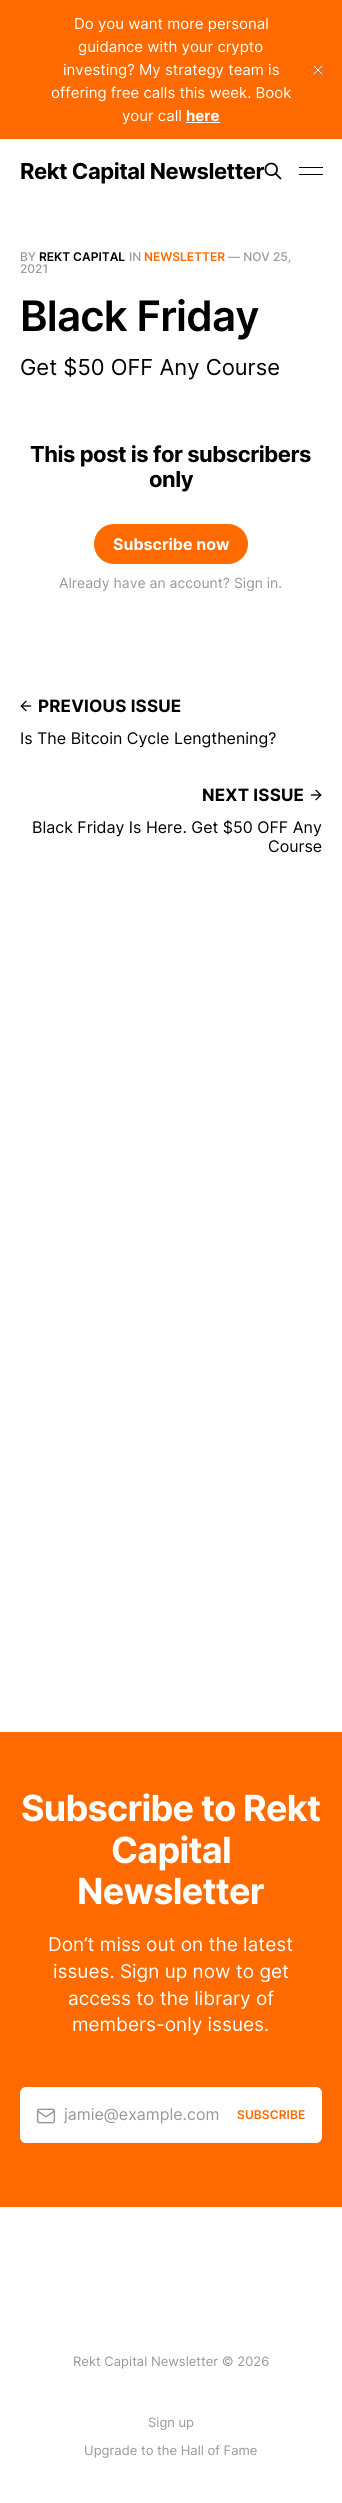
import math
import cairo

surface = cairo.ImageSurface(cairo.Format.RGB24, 342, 2503)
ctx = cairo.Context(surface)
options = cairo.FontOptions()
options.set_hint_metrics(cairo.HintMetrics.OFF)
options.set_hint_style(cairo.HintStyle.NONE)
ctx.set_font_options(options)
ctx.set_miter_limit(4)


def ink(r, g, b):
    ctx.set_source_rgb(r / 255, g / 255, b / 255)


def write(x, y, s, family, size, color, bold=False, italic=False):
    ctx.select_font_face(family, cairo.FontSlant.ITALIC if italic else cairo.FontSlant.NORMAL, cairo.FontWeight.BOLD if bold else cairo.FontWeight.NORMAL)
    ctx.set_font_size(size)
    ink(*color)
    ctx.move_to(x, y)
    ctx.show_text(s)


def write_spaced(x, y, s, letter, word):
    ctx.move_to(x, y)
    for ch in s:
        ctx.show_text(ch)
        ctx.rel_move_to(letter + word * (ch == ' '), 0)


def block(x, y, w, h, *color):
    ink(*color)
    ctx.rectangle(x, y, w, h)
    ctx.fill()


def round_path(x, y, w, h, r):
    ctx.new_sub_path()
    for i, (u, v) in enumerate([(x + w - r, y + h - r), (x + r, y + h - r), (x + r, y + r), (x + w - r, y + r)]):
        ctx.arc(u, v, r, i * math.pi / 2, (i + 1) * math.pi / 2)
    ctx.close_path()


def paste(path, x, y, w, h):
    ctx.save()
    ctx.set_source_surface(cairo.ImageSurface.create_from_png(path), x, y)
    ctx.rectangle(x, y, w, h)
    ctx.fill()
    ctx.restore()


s1 = dict(family="Inter", size=15, color=(255, 255, 255))
s2 = dict(family="Inter", size=15, color=(255, 255, 255), bold=True)
s3 = dict(family="Inter Medium", size=12, color=(153, 153, 153))
s4 = dict(family="Inter SemiBold", size=12, color=(0, 0, 0))
s5 = dict(family="Inter SemiBold", size=12, color=(255, 107, 0))
s6 = dict(family="Inter", size=22, color=(0, 0, 0))
s7 = dict(family="Inter", size=16, color=(255, 255, 255), bold=True)
s8 = dict(family="Inter", size=14, color=(153, 153, 153))
s9 = dict(family="Inter", size=16, color=(0, 0, 0))
s10 = dict(family="Inter", size=19, color=(255, 255, 255))
s11 = dict(family="Inter", size=16, color=(153, 153, 153))
s12 = dict(family="Inter", size=13, color=(153, 153, 153))

ink(255, 255, 255)
ctx.paint()
block(0, 0, 342, 139, 255, 107, 0)
write(74, 29, "Do you want more personal", **s1)
write(78, 52, "guidance with your crypto", **s1)
write(63, 75, "investing? My strategy team is", **s1)
write(51, 98, "offering free calls this week. Book", **s1)
write(122, 121, "your call", **s1)
write(186, 121, "here", **s2)
block(186, 122, 34, 1, 255, 255, 255)
paste("pic1.png", 312, 65, 12, 10)
ctx.new_path()
ctx.move_to(280.5, 178.5)
ctx.line_to(275.5, 173.5)
ctx.move_to(277, 169.5)
ctx.curve_to(277, 177, 265.5, 177, 265.5, 169.5)
ctx.curve_to(265.5, 161.5, 277, 161.5, 277, 169.5)
ctx.close_path()
ink(0, 0, 0)
ctx.set_line_width(1.7)
ctx.set_line_cap(cairo.LineCap.ROUND)
ctx.set_line_join(cairo.LineJoin.ROUND)
ctx.stroke()
ctx.set_font_size(22)
write_spaced(20, 179, "Rekt Capital Newsletter", -0.45, 0)
block(299, 167, 24, 1, 0, 0, 0)
block(299, 174, 24, 1, 0, 0, 0)
write(20, 261, "BY", **s3)
write(39, 261, "REKT CAPITAL", **s4)
write(129, 261, "IN", **s3)
write(144, 261, "NEWSLETTER", **s5)
write(228, 261, "— NOV 25,", **s3)
write(20, 273, "2021", **s3)
ctx.select_font_face("Inter SemiBold")
ctx.set_font_size(42)
ink(0, 0, 0)
write_spaced(20, 331, "Black Friday", -0.8, 0)
write(20, 375, "Get $50 OFF Any Course", **s6)
ctx.select_font_face("Inter", cairo.FontSlant.NORMAL, cairo.FontWeight.BOLD)
write_spaced(30, 462, "This post is for subscribers", -0.45, 0)
write_spaced(149, 487, "only", -0.45, 0)
ink(255, 107, 0)
round_path(94, 524, 154, 40, 20)
ctx.fill()
write(113, 550, "Subscribe now", **s7)
write(59, 588, "Already have an account? Sign in.", **s8)
paste("pic2.png", 20, 700, 12, 12)
ctx.select_font_face("Inter", cairo.FontSlant.NORMAL, cairo.FontWeight.BOLD)
ctx.set_font_size(17)
ink(0, 0, 0)
write_spaced(38, 712, "PREVIOUS ISSUE", 0.2, 0)
write(20, 744, "Is The Bitcoin Cycle Lengthening?", **s9)
ctx.select_font_face("Inter", cairo.FontSlant.NORMAL, cairo.FontWeight.BOLD)
ctx.set_font_size(17)
write_spaced(202, 801, "NEXT ISSUE", 0.2, 0)
paste("pic3.png", 310, 789, 12, 12)
write(32, 833, "Black Friday Is Here. Get $50 OFF Any", **s9)
write(268, 852, "Course", **s9)
block(0, 1732, 342, 475, 255, 107, 0)
ctx.select_font_face("Inter", cairo.FontSlant.NORMAL, cairo.FontWeight.BOLD)
ctx.set_font_size(36)
ink(255, 255, 255)
write_spaced(21, 1821, "Subscribe to Rekt", -0.75, 0)
write_spaced(111, 1863, "Capital", -0.75, 0)
write_spaced(77, 1904, "Newsletter", -0.75, 0)
write(48, 1951, "Don’t miss out on the latest", **s10)
write(53, 1978, "issues. Sign up now to get", **s10)
write(68, 2005, "access to the library of", **s10)
write(72, 2031, "members-only issues.", **s10)
round_path(20, 2087, 302, 56, 6)
ctx.fill()
paste("pic4.png", 36, 2108, 20, 16)
write(64, 2120, "jamie@example.com", **s11)
ctx.select_font_face("Inter SemiBold")
ctx.set_font_size(12)
ink(255, 107, 0)
write_spaced(237, 2119, "SUBSCRIBE", 0.1, 0)
write(73, 2366, "Rekt Capital Newsletter © 2026", **s12)
write(148, 2427, "Sign up", **s12)
write(84, 2455, "Upgrade to the Hall of Fame", **s12)
surface.write_to_png("screenshot.png")
